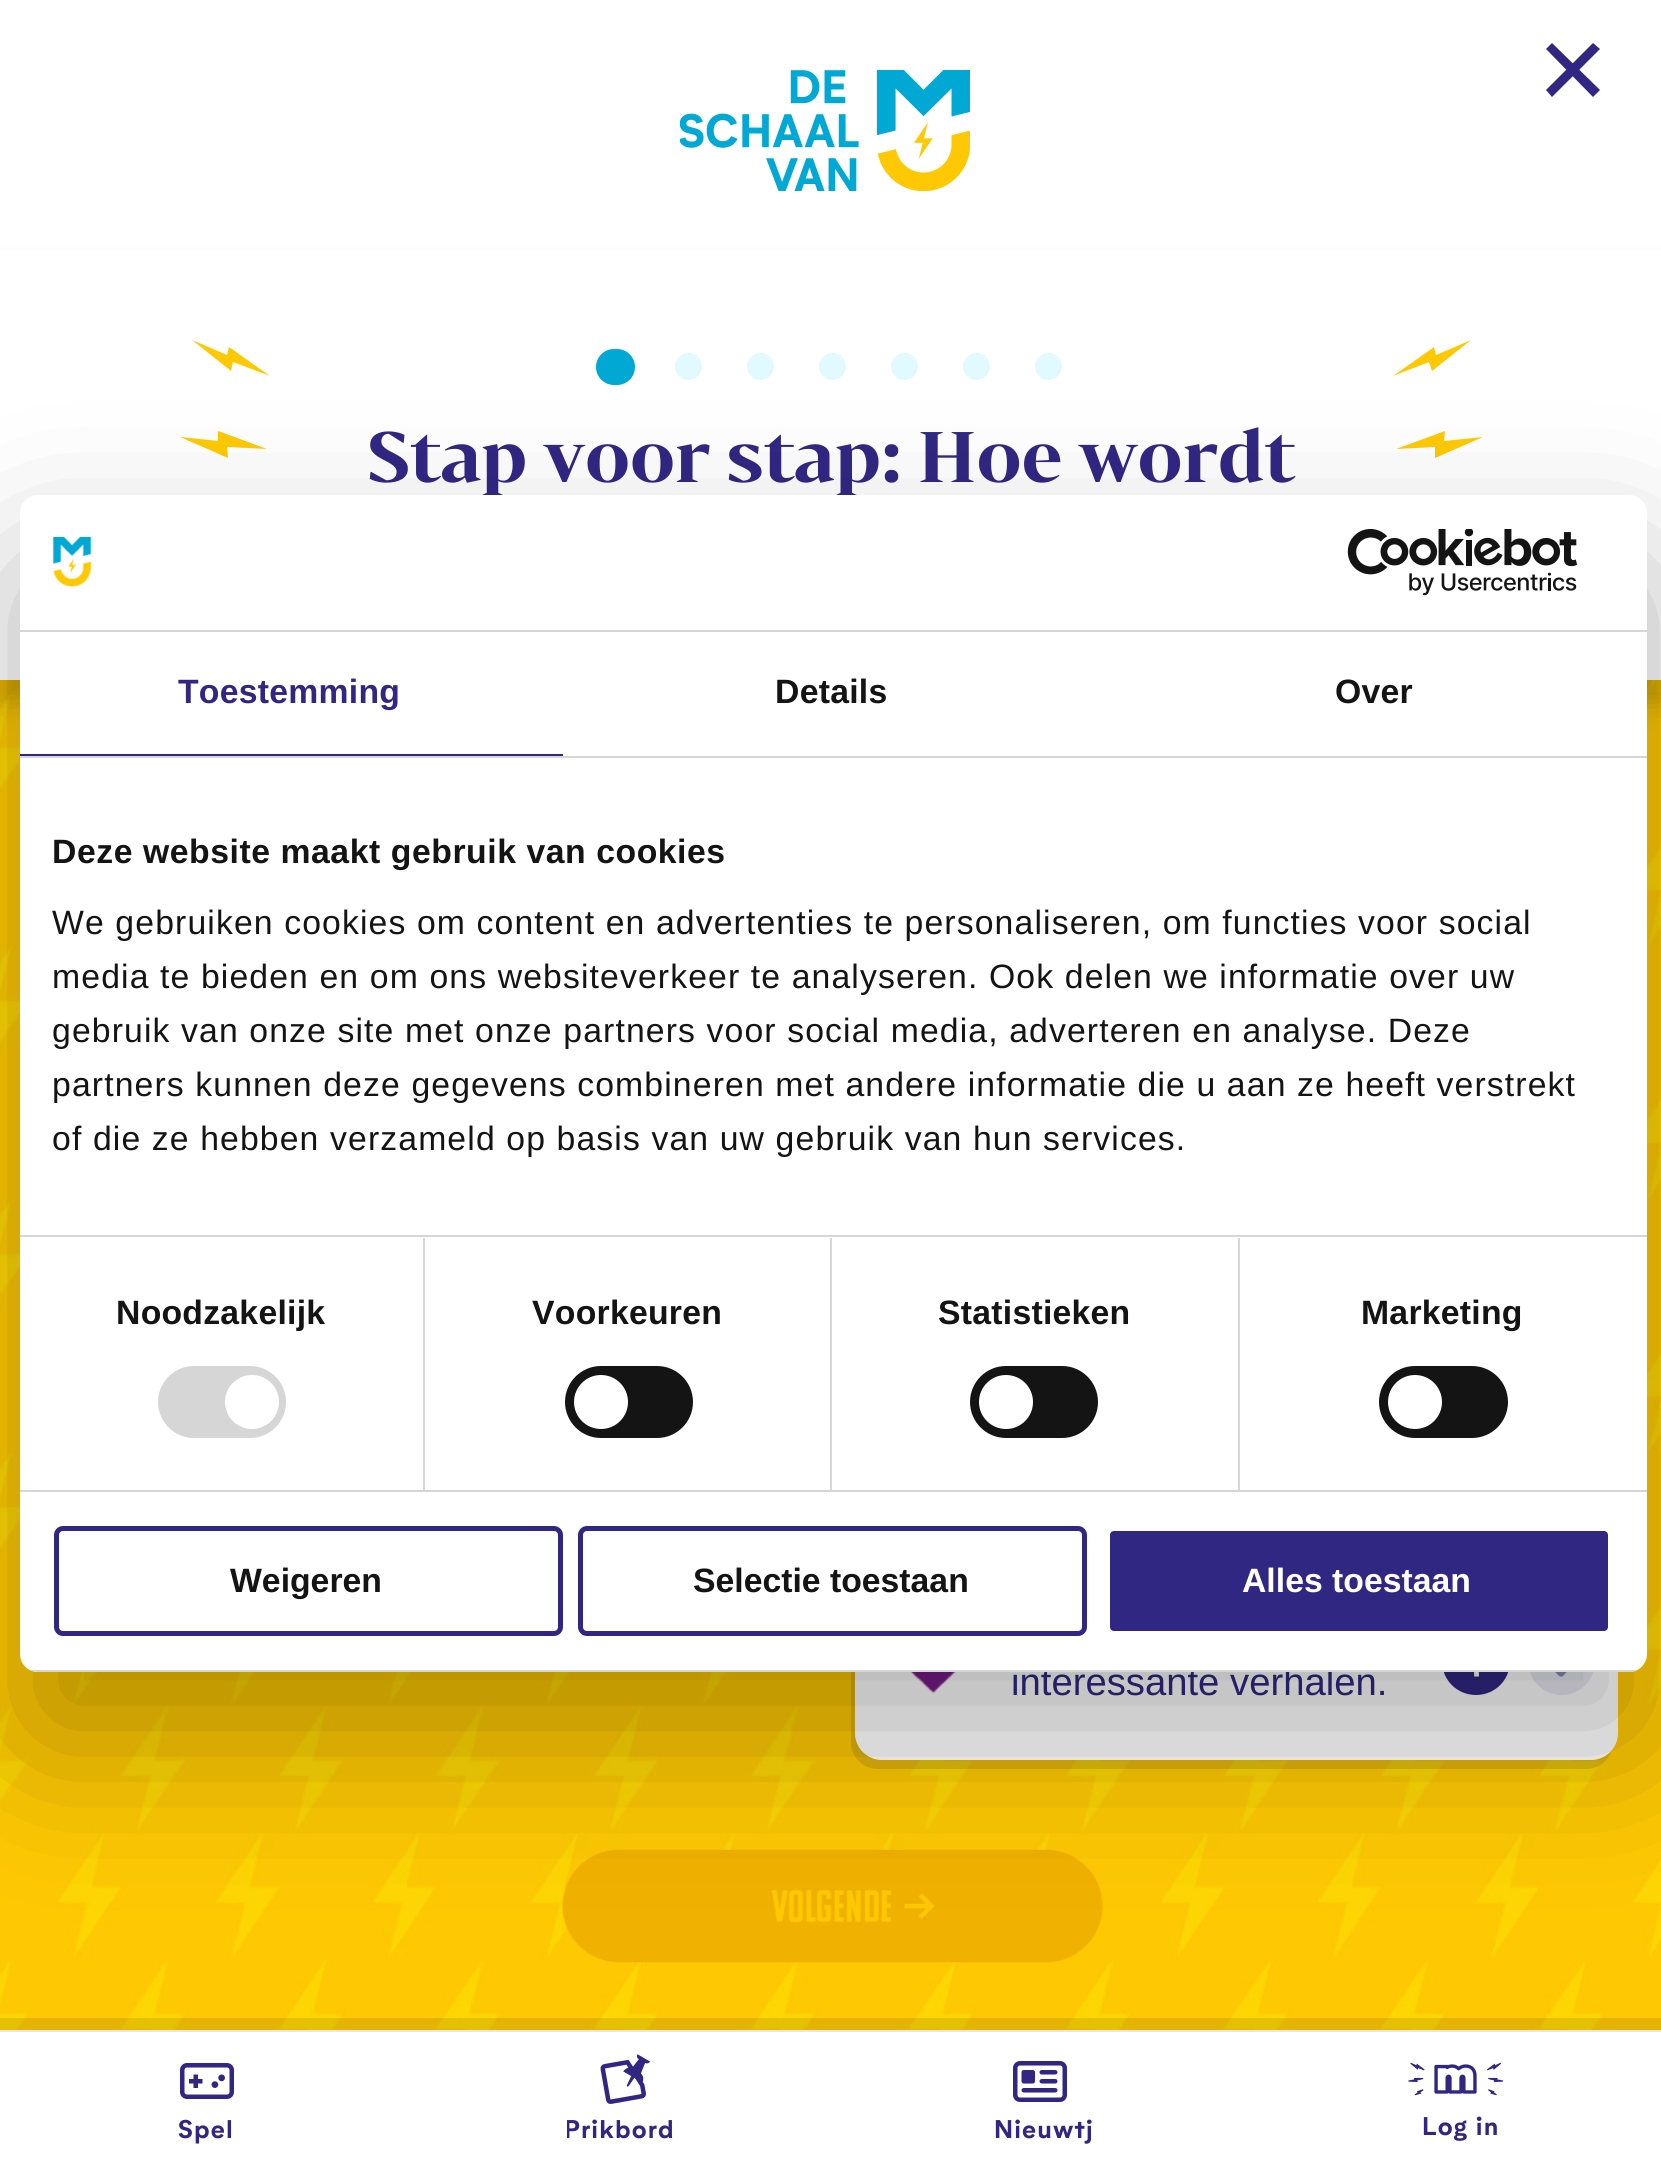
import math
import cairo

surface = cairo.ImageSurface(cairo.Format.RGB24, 1661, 2164)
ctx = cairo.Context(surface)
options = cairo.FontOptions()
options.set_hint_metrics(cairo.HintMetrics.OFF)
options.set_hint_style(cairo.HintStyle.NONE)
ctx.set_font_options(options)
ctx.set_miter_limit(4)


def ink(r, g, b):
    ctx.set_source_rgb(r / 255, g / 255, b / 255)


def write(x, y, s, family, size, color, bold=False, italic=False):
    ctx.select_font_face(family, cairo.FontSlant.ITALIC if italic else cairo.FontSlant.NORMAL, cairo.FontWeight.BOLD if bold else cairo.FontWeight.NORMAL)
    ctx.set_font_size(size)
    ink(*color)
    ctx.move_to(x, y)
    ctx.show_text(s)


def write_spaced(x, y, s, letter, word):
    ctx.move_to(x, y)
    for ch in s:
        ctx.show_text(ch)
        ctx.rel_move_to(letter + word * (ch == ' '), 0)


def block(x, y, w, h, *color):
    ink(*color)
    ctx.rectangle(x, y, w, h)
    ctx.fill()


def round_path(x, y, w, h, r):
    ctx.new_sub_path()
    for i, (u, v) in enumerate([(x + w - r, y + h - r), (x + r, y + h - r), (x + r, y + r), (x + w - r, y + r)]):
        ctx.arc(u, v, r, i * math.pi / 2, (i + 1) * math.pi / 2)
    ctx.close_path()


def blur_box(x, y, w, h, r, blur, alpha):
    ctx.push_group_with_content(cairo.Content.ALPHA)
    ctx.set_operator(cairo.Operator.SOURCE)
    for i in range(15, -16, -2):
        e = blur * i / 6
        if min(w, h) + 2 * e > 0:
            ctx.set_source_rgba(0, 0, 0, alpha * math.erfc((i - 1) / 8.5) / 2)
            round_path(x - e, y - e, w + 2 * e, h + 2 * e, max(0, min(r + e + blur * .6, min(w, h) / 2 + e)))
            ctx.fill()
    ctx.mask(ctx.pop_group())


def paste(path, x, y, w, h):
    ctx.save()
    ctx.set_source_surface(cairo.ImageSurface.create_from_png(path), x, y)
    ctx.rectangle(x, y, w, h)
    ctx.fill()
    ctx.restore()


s1 = dict(family="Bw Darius", size=67.5, color=(49, 39, 131), bold=True)
s2 = dict(family="Liberation Sans", size=38.25, color=(49, 39, 131))
s3 = dict(family="Liberation Sans", size=33.75, color=(20, 20, 20), bold=True)
s4 = dict(family="Liberation Sans", size=33.75, color=(255, 255, 255), bold=True)

ink(255, 255, 255)
ctx.paint()
paste("pic1.png", 0, 680, 1661, 1350)
paste("pic2.png", 680, 70, 290, 121)
ink(49, 39, 131)
ctx.new_path()
ctx.move_to(1552, 43)
ctx.line_to(1600, 90)
ctx.line_to(1593, 97)
ctx.line_to(1546, 49)
ctx.close_path()
ctx.fill()
ctx.new_path()
ctx.move_to(1546, 90)
ctx.line_to(1593, 43)
ctx.line_to(1600, 49)
ctx.line_to(1552, 97)
ctx.close_path()
ctx.fill()
ink(0, 0, 0)
blur_box(0, 272, 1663, 430, 0, 13.5, 0.2)
block(0, 250, 1661, 430, 255, 255, 255)
ink(254, 201, 3)
ctx.new_path()
ctx.move_to(218, 431)
ctx.line_to(218, 441)
ctx.line_to(180, 437)
ctx.line_to(228, 458)
ctx.line_to(227, 447)
ctx.line_to(267, 449)
ctx.close_path()
ctx.fill()
ctx.new_path()
ctx.move_to(229, 347)
ctx.line_to(227, 355)
ctx.line_to(192, 340)
ctx.line_to(231, 371)
ctx.line_to(233, 362)
ctx.line_to(270, 376)
ctx.close_path()
ctx.fill()
ink(0, 168, 211)
round_path(596, 349, 39, 36, 18)
ctx.fill()
ink(224, 250, 255)
ctx.arc(688.5, 366.5, 13.5, 0, 2 * math.pi)
ctx.fill()
ctx.arc(760.5, 366.5, 13.5, 0, 2 * math.pi)
ctx.fill()
ctx.arc(832.5, 366.5, 13.5, 0, 2 * math.pi)
ctx.fill()
ctx.arc(904.5, 366.5, 13.5, 0, 2 * math.pi)
ctx.fill()
ctx.arc(976.5, 366.5, 13.5, 0, 2 * math.pi)
ctx.fill()
ctx.arc(1048.5, 366.5, 13.5, 0, 2 * math.pi)
ctx.fill()
write(367, 482, "Stap voor stap: Hoe wordt", **s1)
ink(254, 201, 3)
ctx.new_path()
ctx.move_to(1445, 431)
ctx.line_to(1444, 441)
ctx.line_to(1483, 437)
ctx.line_to(1435, 458)
ctx.line_to(1435, 447)
ctx.line_to(1396, 449)
ctx.close_path()
ctx.fill()
ctx.new_path()
ctx.move_to(1434, 347)
ctx.line_to(1436, 355)
ctx.line_to(1471, 340)
ctx.line_to(1432, 371)
ctx.line_to(1429, 362)
ctx.line_to(1393, 376)
ctx.close_path()
ctx.fill()
ctx.set_source_rgba(0.2, 0.2, 0.2, 0.15)
ctx.new_path()
ctx.move_to(856, 1585)
ctx.curve_to(853, 1589, 851, 1594, 851, 1600)
ctx.line_to(851, 1742)
ctx.curve_to(851, 1757, 863, 1769, 878, 1769)
ctx.line_to(1586, 1769)
ctx.curve_to(1598, 1769, 1609, 1761, 1612, 1749)
ctx.curve_to(1607, 1755, 1599, 1760, 1591, 1760)
ctx.line_to(882, 1760)
ctx.curve_to(867, 1760, 855, 1747, 855, 1732)
ctx.line_to(855, 1591)
ctx.close_path()
ctx.fill()
ink(255, 255, 255)
round_path(855, 1564, 763, 196, 27)
ctx.fill()
paste("pic3.png", 910, 1672, 46, 22)
write(1011, 1695, "interessante verhalen.", **s2)
ctx.new_path()
ctx.move_to(1442, 1661)
ctx.curve_to(1442, 1642, 1457, 1627, 1476, 1627)
ctx.curve_to(1495, 1627, 1510, 1642, 1510, 1661)
ctx.curve_to(1510, 1680, 1495, 1695, 1476, 1695)
ctx.curve_to(1457, 1695, 1442, 1680, 1442, 1661)
ctx.close_path()
ctx.fill()
ctx.save()
ctx.new_path()
ctx.move_to(1459, 1676.5)
ctx.line_to(1459, 1645)
ctx.line_to(1493, 1645)
ctx.line_to(1493, 1676.5)
ctx.close_path()
ctx.clip()
ctx.new_path()
ctx.move_to(1476.5, 1676.5)
ctx.line_to(1476.5, 1647.5)
ctx.move_to(1464.5, 1659.5)
ctx.line_to(1476.5, 1647.5)
ctx.line_to(1489, 1659.5)
ink(255, 255, 255)
ctx.set_line_width(4.8)
ctx.stroke()
ctx.restore()
ink(234, 233, 243)
ctx.new_path()
ctx.move_to(1595, 1661)
ctx.curve_to(1595, 1680, 1580, 1695, 1562, 1695)
ctx.curve_to(1543, 1695, 1528, 1680, 1528, 1661)
ctx.curve_to(1528, 1642, 1543, 1627, 1562, 1627)
ctx.curve_to(1580, 1627, 1595, 1642, 1595, 1661)
ctx.close_path()
ctx.fill()
ctx.save()
ctx.new_path()
ctx.move_to(1578.5, 1645)
ctx.line_to(1578.5, 1676.5)
ctx.line_to(1544.5, 1676.5)
ctx.line_to(1544.5, 1645)
ctx.close_path()
ctx.clip()
ctx.new_path()
ctx.move_to(1561, 1645)
ctx.line_to(1561, 1674.5)
ctx.move_to(1573, 1662)
ctx.line_to(1561, 1674.5)
ctx.line_to(1548.5, 1662)
ink(142, 136, 187)
ctx.set_line_width(4.8)
ctx.stroke()
ctx.restore()
paste("pic4.png", 562, 1849, 541, 114)
ctx.set_source_rgba(0, 0, 0, 0.1)
ctx.new_path()
ctx.move_to(0, 2018)
ctx.line_to(0, 2030)
ctx.line_to(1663, 2030)
ctx.line_to(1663, 2153)
ctx.line_to(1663, 2018)
ctx.close_path()
ctx.fill()
block(0, 2030, 1661, 2, 230, 230, 230)
paste("pic5.png", 180, 2063, 54, 36)
ctx.select_font_face("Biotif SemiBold")
ctx.set_font_size(24.75)
ink(49, 39, 131)
write_spaced(178, 2138, "Spel", 1.12, 0)
paste("pic6.png", 600, 2054, 50, 50)
ctx.save()
ctx.rectangle(567, 2041, 113, 112)
ctx.clip()
write_spaced(564, 2138, "Prikbord", 1.12, 0)
ctx.restore()
paste("pic7.png", 1013, 2061, 54, 41)
write_spaced(994, 2138, "Nieuwtj", 1.12, 0)
paste("pic8.png", 1408, 2062, 96, 34)
write_spaced(1422, 2135, "Log in", 1.12, 0)
ink(0, 0, 0)
blur_box(20, 567, 1627, 1177, 18, 76.5, 0.3)
ink(255, 255, 255)
round_path(20, 495, 1627, 1177, 18)
ctx.fill()
block(20, 630, 1627, 2, 214, 214, 214)
paste("pic9.png", 53, 536, 39, 51)
paste("pic10.png", 1347, 529, 231, 67)
block(20, 756, 1627, 2, 214, 214, 214)
block(20, 754, 543, 2, 48, 39, 131)
ctx.select_font_face("Liberation Sans", cairo.FontSlant.NORMAL, cairo.FontWeight.BOLD)
ctx.set_font_size(33.75)
ink(49, 39, 131)
write_spaced(178, 703, "Toestemming", 0.25, 0)
ink(20, 20, 20)
write_spaced(775, 703, "Details", 0.25, 0)
write_spaced(1335, 703, "Over", 0.25, 0)
block(20, 1235, 1627, 2, 214, 214, 214)
ink(20, 20, 20)
write_spaced(52, 863, "Deze website maakt gebruik van cookies", 0.55, 0)
ctx.select_font_face("Liberation Sans")
write_spaced(52, 934, "We gebruiken cookies om content en advertenties te personaliseren, om functies voor social", 1.12, 0)
write_spaced(52, 988, "media te bieden en om ons websiteverkeer te analyseren. Ook delen we informatie over uw", 1.12, 0)
write_spaced(52, 1042, "gebruik van onze site met onze partners voor social media, adverteren en analyse. Deze", 1.12, 0)
write_spaced(52, 1096, "partners kunnen deze gegevens combineren met andere informatie die u aan ze heeft verstrekt", 1.12, 0)
write_spaced(52, 1150, "of die ze hebben verzameld op basis van uw gebruik van hun services.", 1.12, 0)
block(20, 1490, 1627, 2, 214, 214, 214)
block(423, 1238, 2, 252, 214, 214, 214)
ctx.select_font_face("Liberation Sans", cairo.FontSlant.NORMAL, cairo.FontWeight.BOLD)
ink(20, 20, 20)
write_spaced(116, 1324, "Noodzakelijk", 0.25, 0)
ink(214, 214, 214)
round_path(158, 1366, 128, 72, 36)
ctx.fill()
ink(255, 255, 255)
ctx.arc(252, 1402, 27, 0, 2 * math.pi)
ctx.fill()
block(830, 1238, 2, 252, 214, 214, 214)
ink(20, 20, 20)
write_spaced(532, 1324, "Voorkeuren", 0.25, 0)
round_path(565, 1366, 128, 72, 36)
ctx.fill()
ink(255, 255, 255)
ctx.arc(601, 1402, 27, 0, 2 * math.pi)
ctx.fill()
block(1238, 1238, 2, 252, 214, 214, 214)
ink(20, 20, 20)
write_spaced(938, 1324, "Statistieken", 0.25, 0)
round_path(970, 1366, 128, 72, 36)
ctx.fill()
ink(255, 255, 255)
ctx.arc(1006, 1402, 27, 0, 2 * math.pi)
ctx.fill()
ink(20, 20, 20)
write_spaced(1361, 1324, "Marketing", 0.25, 0)
round_path(1379, 1366, 129, 72, 36)
ctx.fill()
ink(255, 255, 255)
ctx.arc(1415, 1402, 27, 0, 2 * math.pi)
ctx.fill()
ctx.save()
round_path(20, 495, 1627, 1177, 18)
ctx.clip()
block(30, 1670, 1607, 2, 214, 214, 214)
ctx.restore()
round_path(56.5, 1528.5, 504, 105, 6.5)
ink(48, 39, 131)
ctx.set_line_width(5)
ctx.stroke()
write(230, 1592, "Weigeren", **s3)
round_path(580.5, 1528.5, 504, 105, 6.5)
ink(48, 39, 131)
ctx.stroke()
write(693, 1592, "Selectie toestaan", **s3)
ink(48, 39, 131)
round_path(1107.5, 1528.5, 503, 105, 6.5)
ctx.fill_preserve()
ink(255, 255, 255)
ctx.stroke()
write(1242, 1592, "Alles toestaan", **s4)
surface.write_to_png("screenshot.png")
